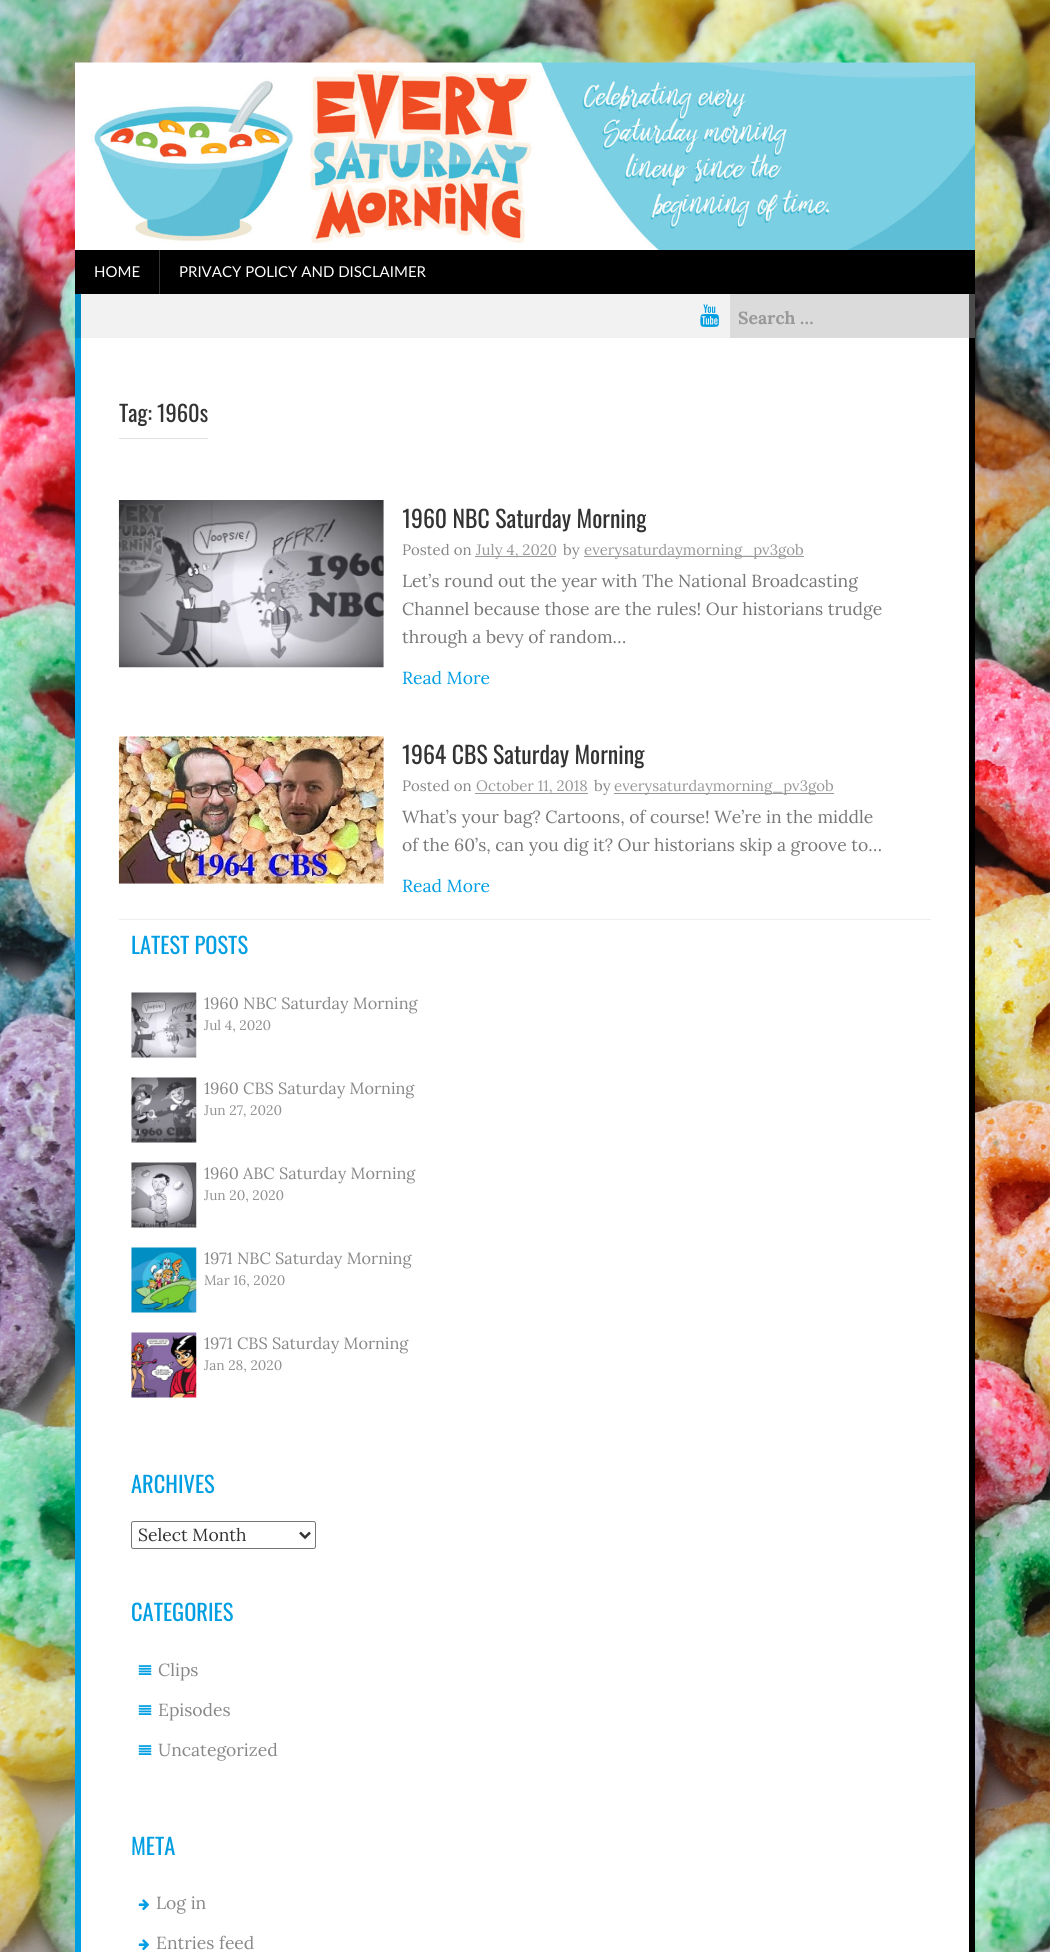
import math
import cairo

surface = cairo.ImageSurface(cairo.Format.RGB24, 1050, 1952)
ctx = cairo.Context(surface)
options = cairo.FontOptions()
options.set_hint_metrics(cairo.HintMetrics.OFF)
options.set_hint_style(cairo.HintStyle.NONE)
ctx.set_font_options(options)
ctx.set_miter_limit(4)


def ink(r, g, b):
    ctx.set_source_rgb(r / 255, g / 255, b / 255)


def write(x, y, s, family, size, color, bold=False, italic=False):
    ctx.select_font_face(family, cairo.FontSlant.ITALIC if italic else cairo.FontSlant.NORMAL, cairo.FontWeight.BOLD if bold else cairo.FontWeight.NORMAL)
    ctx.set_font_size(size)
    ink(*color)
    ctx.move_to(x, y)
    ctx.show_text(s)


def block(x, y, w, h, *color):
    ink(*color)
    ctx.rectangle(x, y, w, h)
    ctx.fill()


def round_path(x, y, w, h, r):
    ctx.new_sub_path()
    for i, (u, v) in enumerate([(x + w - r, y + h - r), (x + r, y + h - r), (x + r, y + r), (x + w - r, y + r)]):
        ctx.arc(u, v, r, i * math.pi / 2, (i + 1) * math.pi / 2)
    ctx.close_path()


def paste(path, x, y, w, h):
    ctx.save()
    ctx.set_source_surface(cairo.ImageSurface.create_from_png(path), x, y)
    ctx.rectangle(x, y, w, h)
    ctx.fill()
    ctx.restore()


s1 = dict(family="Lato", size=15, color=(255, 255, 255))
s2 = dict(family="Lora", size=17.5, color=(153, 153, 153), bold=True)
s3 = dict(family="Oswald", size=22.5, color=(51, 51, 51))
s4 = dict(family="Oswald", size=23.75, color=(51, 51, 51))
s5 = dict(family="Lora", size=15, color=(136, 136, 136))
s6 = dict(family="Lora", size=15, color=(153, 153, 153))
s7 = dict(family="Lora", size=17.5, color=(119, 119, 119))
s8 = dict(family="Lora", size=17.5, color=(0, 158, 226))
s9 = dict(family="Oswald", size=22.5, color=(0, 158, 226))
s10 = dict(family="Lora", size=16.25, color=(136, 136, 136))
s11 = dict(family="Lora", size=13.75, color=(145, 145, 145))
s12 = dict(family="Lora", size=17.5, color=(51, 51, 51))
s13 = dict(family="Lora", size=17.5, color=(136, 136, 136))

ink(255, 255, 255)
ctx.paint()
paste("pic1.png", 0, 0, 1050, 1952)
paste("pic2.png", 75, 62, 900, 188)
block(75, 250, 900, 44, 0, 0, 0)
block(159, 250, 1, 44, 51, 51, 51)
write(94, 277, "HOME", **s1)
write(179, 277, "PRIVACY POLICY AND DISCLAIMER", **s1)
block(81, 294, 649, 44, 242, 242, 242)
block(969, 294, 6, 44, 77, 77, 77)
block(75, 294, 6, 44, 0, 137, 195)
paste("pic3.png", 700, 304, 19, 23)
block(730, 294, 239, 44, 219, 219, 219)
write(738, 324, "Search …", **s2)
block(81, 338, 888, 1614, 255, 255, 255)
block(969, 338, 6, 1614, 0, 0, 0)
block(75, 338, 6, 1614, 0, 158, 226)
block(119, 438, 89, 1, 225, 225, 225)
write(119, 422, "Tag: 1960s", **s3)
paste("pic4.png", 118, 500, 266, 168)
ctx.save()
ctx.rectangle(403, 504, 243, 29)
ctx.clip()
write(402, 528, "1960 NBC Saturday Morning", **s4)
ctx.restore()
write(402, 555, "Posted on", **s5)
block(475, 556, 81, 1, 153, 153, 153)
write(476, 555, "July 4, 2020", **s6)
write(563, 555, "by", **s5)
block(584, 556, 220, 1, 153, 153, 153)
write(584, 555, "everysaturdaymorning_pv3gob", **s6)
write(402, 587, "Let’s round out the year with The National Broadcasting", **s7)
write(402, 615, "Channel because those are the rules! Our historians trudge", **s7)
write(402, 643, "through a bevy of random…", **s7)
write(402, 684, "Read More", **s8)
block(119, 919, 812, 1, 238, 238, 238)
paste("pic5.png", 118, 736, 266, 148)
write(402, 764, "1964 CBS Saturday Morning", **s4)
write(402, 791, "Posted on", **s5)
block(475, 793, 113, 1, 153, 153, 153)
write(476, 791, "October 11, 2018", **s6)
write(594, 791, "by", **s5)
block(614, 793, 220, 1, 153, 153, 153)
write(614, 791, "everysaturdaymorning_pv3gob", **s6)
write(402, 823, "What’s your bag? Cartoons, of course! We’re in the middle", **s7)
write(402, 851, "of the 60’s, can you dig it? Our historians skip a groove to…", **s7)
write(402, 892, "Read More", **s8)
write(131, 954, "LATEST POSTS", **s9)
paste("pic6.png", 131, 992, 66, 66)
write(204, 1009, "1960 NBC Saturday Morning", **s10)
write(204, 1030, "Jul 4, 2020", **s11)
paste("pic7.png", 131, 1077, 66, 66)
write(204, 1094, "1960 CBS Saturday Morning", **s10)
write(204, 1115, "Jun 27, 2020", **s11)
paste("pic8.png", 131, 1162, 66, 66)
write(204, 1179, "1960 ABC Saturday Morning", **s10)
write(204, 1200, "Jun 20, 2020", **s11)
paste("pic9.png", 131, 1247, 66, 66)
write(204, 1264, "1971 NBC Saturday Morning", **s10)
write(204, 1285, "Mar 16, 2020", **s11)
paste("pic10.png", 131, 1332, 66, 66)
write(204, 1349, "1971 CBS Saturday Morning", **s10)
write(204, 1370, "Jan 28, 2020", **s11)
write(131, 1493, "ARCHIVES", **s9)
round_path(131.5, 1521.5, 184, 27, 2)
ink(118, 118, 118)
ctx.set_line_width(1)
ctx.stroke()
ctx.new_path()
ctx.move_to(300, 1532.5)
ctx.line_to(305, 1537.5)
ctx.line_to(310, 1532.5)
ink(51, 51, 51)
ctx.set_line_width(2.5)
ctx.stroke()
write(138, 1541, "Select Month", **s12)
write(131, 1621, "CATEGORIES", **s9)
paste("pic11.png", 138, 1665, 14, 10)
write(158, 1676, "Clips", **s13)
paste("pic11.png", 138, 1705, 14, 10)
write(158, 1716, "Episodes", **s13)
paste("pic11.png", 138, 1745, 14, 10)
write(158, 1756, "Uncategorized", **s13)
write(131, 1855, "META", **s9)
paste("pic12.png", 138, 1899, 11, 12)
write(156, 1909, "Log in", **s13)
paste("pic12.png", 138, 1939, 11, 12)
write(156, 1949, "Entries feed", **s13)
surface.write_to_png("screenshot.png")
